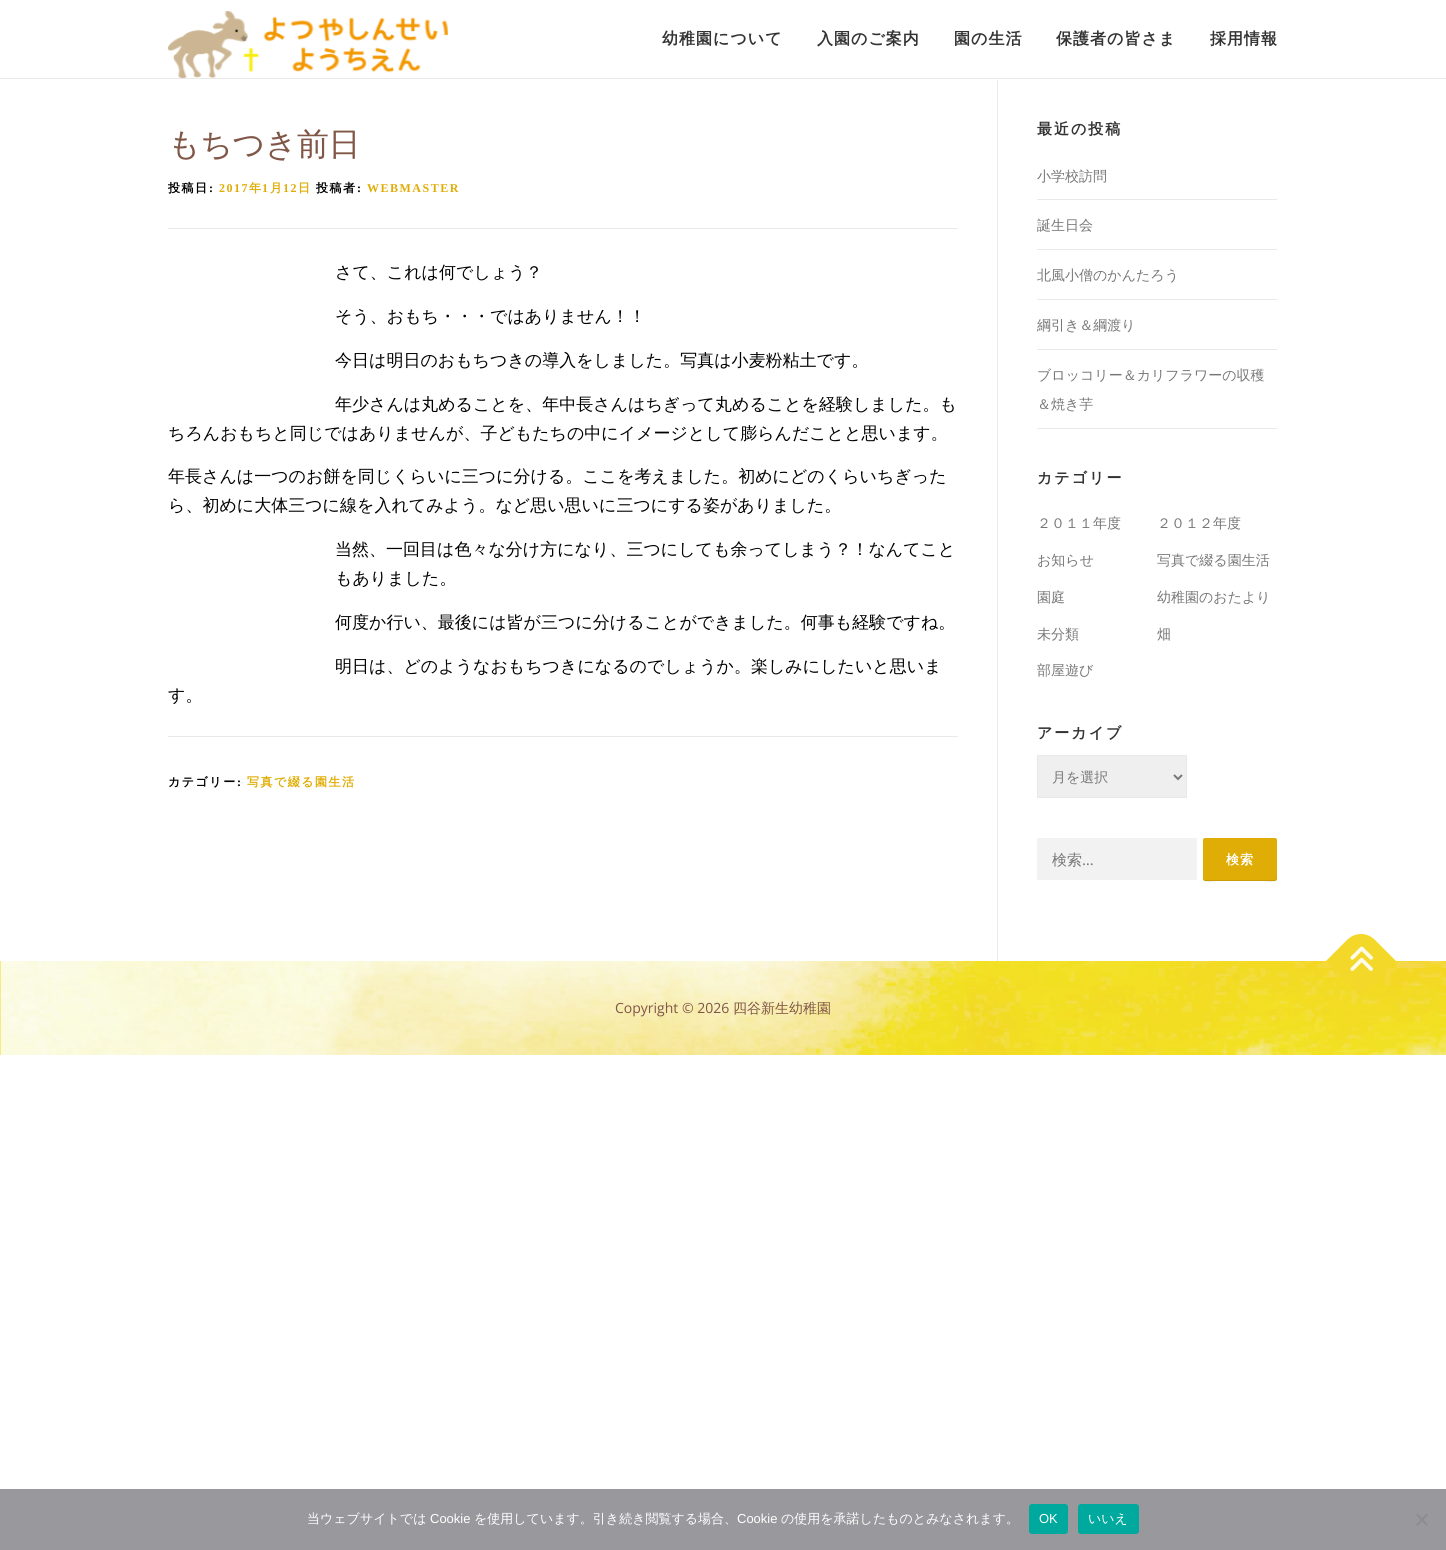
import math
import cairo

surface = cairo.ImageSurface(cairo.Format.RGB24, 1446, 1550)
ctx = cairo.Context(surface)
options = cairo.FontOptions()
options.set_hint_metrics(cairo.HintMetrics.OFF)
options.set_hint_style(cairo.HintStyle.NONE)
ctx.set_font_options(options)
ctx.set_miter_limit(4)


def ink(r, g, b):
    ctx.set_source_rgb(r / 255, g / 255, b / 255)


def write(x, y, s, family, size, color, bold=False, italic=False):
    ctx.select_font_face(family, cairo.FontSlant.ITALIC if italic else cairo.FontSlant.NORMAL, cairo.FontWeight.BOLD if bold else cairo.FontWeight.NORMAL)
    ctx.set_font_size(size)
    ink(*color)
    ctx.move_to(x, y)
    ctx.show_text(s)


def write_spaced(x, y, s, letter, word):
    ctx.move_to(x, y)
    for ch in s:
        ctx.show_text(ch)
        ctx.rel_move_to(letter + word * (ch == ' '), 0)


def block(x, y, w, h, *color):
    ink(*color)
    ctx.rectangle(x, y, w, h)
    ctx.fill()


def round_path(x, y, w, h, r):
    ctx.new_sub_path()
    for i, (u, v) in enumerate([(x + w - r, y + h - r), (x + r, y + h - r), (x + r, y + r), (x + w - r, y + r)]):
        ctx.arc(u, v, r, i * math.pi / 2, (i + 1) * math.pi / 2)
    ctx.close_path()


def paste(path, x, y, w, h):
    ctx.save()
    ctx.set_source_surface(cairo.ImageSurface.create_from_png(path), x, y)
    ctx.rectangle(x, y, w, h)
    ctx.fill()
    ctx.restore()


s1 = dict(family="WenQuanYi Zen Hei Medium", size=17, color=(0, 0, 0))
s2 = dict(family="WenQuanYi Zen Hei Medium", size=14, color=(119, 119, 119))
s3 = dict(family="WenQuanYi Zen Hei Medium", size=15, color=(119, 119, 119))
s4 = dict(family="Open Sans", size=15, color=(119, 119, 119))
s5 = dict(family="Open Sans", size=14, color=(128, 86, 71))
s6 = dict(family="WenQuanYi Zen Hei Medium", size=14, color=(128, 86, 71))
s7 = dict(family="WenQuanYi Zen Hei Medium", size=13, color=(255, 255, 255))
s8 = dict(family="Liberation Sans", size=13, color=(255, 255, 255))

ink(255, 255, 255)
ctx.paint()
paste("pic1.png", 168, 11, 280, 67)
ctx.select_font_face("WenQuanYi Zen Hei", cairo.FontSlant.NORMAL, cairo.FontWeight.BOLD)
ctx.set_font_size(16)
ink(51, 51, 51)
write_spaced(662, 44, "幼稚園について", 1, 0)
write_spaced(817, 44, "入園のご案内", 1, 0)
write_spaced(954, 44, "園の生活", 1, 0)
write_spaced(1056, 44, "保護者の皆さま", 1, 0)
write_spaced(1210, 44, "採用情報", 1, 0)
block(0, 78, 1446, 1, 233, 233, 233)
ctx.select_font_face("WenQuanYi Zen Hei Medium")
ctx.set_font_size(32)
ink(128, 86, 71)
write_spaced(168, 155, "もちつき前日", -0.5, 0)
block(168, 228, 790, 1, 233, 233, 233)
ctx.select_font_face("WenQuanYi Zen Hei", cairo.FontSlant.NORMAL, cairo.FontWeight.BOLD)
ctx.set_font_size(12)
ink(0, 0, 0)
write_spaced(168, 192, "投稿日", 1.5, 0)
ctx.select_font_face("Liberation Serif", cairo.FontSlant.NORMAL, cairo.FontWeight.BOLD)
write_spaced(209, 192, ":", 1.5, 0)
ink(224, 173, 6)
write_spaced(219, 192, "2017", 1.5, 0)
ctx.select_font_face("WenQuanYi Zen Hei", cairo.FontSlant.NORMAL, cairo.FontWeight.BOLD)
write_spaced(249, 192, "年", 1.5, 0)
ctx.select_font_face("Liberation Serif", cairo.FontSlant.NORMAL, cairo.FontWeight.BOLD)
write_spaced(262, 192, "1", 1.5, 0)
ctx.select_font_face("WenQuanYi Zen Hei", cairo.FontSlant.NORMAL, cairo.FontWeight.BOLD)
write_spaced(270, 192, "月", 1.5, 0)
ctx.select_font_face("Liberation Serif", cairo.FontSlant.NORMAL, cairo.FontWeight.BOLD)
write_spaced(283, 192, "12", 1.5, 0)
ctx.select_font_face("WenQuanYi Zen Hei", cairo.FontSlant.NORMAL, cairo.FontWeight.BOLD)
write_spaced(298, 192, "日", 1.5, 0)
ink(0, 0, 0)
write_spaced(316, 192, "投稿者", 1.5, 0)
ctx.select_font_face("Liberation Serif", cairo.FontSlant.NORMAL, cairo.FontWeight.BOLD)
write_spaced(357, 192, ":", 1.5, 0)
ink(224, 173, 6)
write_spaced(367, 192, "WEBMASTER", 1.5, 0)
write(335, 278, "さて、これは何でしょう？", **s1)
write(335, 322, "そう、おもち・・・ではありません！！", **s1)
write(335, 366, "今日は明日のおもちつきの導入をしました。写真は小麦粉粘土です。", **s1)
write(335, 410, "年少さんは丸めることを、年中長さんはちぎって丸めることを経験しました。も", **s1)
write(168, 439, "ちろんおもちと同じではありませんが、子どもたちの中にイメージとして膨らんだことと思います。", **s1)
write(168, 482, "年長さんは一つのお餅を同じくらいに三つに分ける。ここを考えました。初めにどのくらいちぎった", **s1)
write(168, 511, "ら、初めに大体三つに線を入れてみよう。など思い思いに三つにする姿がありました。", **s1)
write(335, 555, "当然、一回目は色々な分け方になり、三つにしても余ってしまう？！なんてこと", **s1)
write(335, 584, "もありました。", **s1)
write(335, 628, "何度か行い、最後には皆が三つに分けることができました。何事も経験ですね。", **s1)
write(335, 672, "明日は、どのようなおもちつきになるのでしょうか。楽しみにしたいと思いま", **s1)
write(168, 701, "す。", **s1)
block(168, 736, 790, 1, 233, 233, 233)
ctx.select_font_face("WenQuanYi Zen Hei", cairo.FontSlant.NORMAL, cairo.FontWeight.BOLD)
ctx.set_font_size(12)
ink(0, 0, 0)
write_spaced(168, 786, "カテゴリー", 1.5, 0)
ctx.select_font_face("Liberation Serif", cairo.FontSlant.NORMAL, cairo.FontWeight.BOLD)
write_spaced(237, 786, ":", 1.5, 0)
ctx.select_font_face("WenQuanYi Zen Hei", cairo.FontSlant.NORMAL, cairo.FontWeight.BOLD)
ink(224, 173, 6)
write_spaced(247, 786, "写真で綴る園生活", 1.5, 0)
block(997, 80, 1, 881, 233, 233, 233)
ctx.set_font_size(15)
ink(51, 51, 51)
write_spaced(1037, 134, "最近の投稿", 2, 0)
block(1037, 199, 240, 1, 233, 233, 233)
write(1037, 181, "小学校訪問", **s2)
block(1037, 249, 240, 1, 233, 233, 233)
write(1037, 230, "誕生日会", **s2)
block(1037, 299, 240, 1, 233, 233, 233)
write(1037, 280, "北風小僧のかんたろう", **s2)
block(1037, 349, 240, 1, 233, 233, 233)
write(1037, 330, "綱引き＆綱渡り", **s2)
block(1037, 428, 240, 1, 233, 233, 233)
write(1037, 380, "ブロッコリー＆カリフラワーの収穫", **s2)
write(1037, 409, "＆焼き芋", **s2)
ctx.select_font_face("WenQuanYi Zen Hei", cairo.FontSlant.NORMAL, cairo.FontWeight.BOLD)
ctx.set_font_size(15)
ink(51, 51, 51)
write_spaced(1037, 483, "カテゴリー", 2, 0)
write(1037, 528, "２０１１年度", **s2)
write(1157, 528, "２０１２年度", **s2)
write(1037, 565, "お知らせ", **s2)
write(1157, 565, "写真で綴る園生活", **s2)
write(1037, 602, "園庭", **s2)
write(1157, 602, "幼稚園のおたより", **s2)
write(1037, 639, "未分類", **s2)
write(1157, 639, "畑", **s2)
write(1037, 675, "部屋遊び", **s2)
ctx.select_font_face("WenQuanYi Zen Hei", cairo.FontSlant.NORMAL, cairo.FontWeight.BOLD)
ctx.set_font_size(15)
ink(51, 51, 51)
write_spaced(1037, 738, "アーカイブ", 2, 0)
ink(239, 239, 239)
ctx.rectangle(1037.5, 755.5, 149, 42)
ctx.fill_preserve()
ink(233, 233, 233)
ctx.set_line_width(1)
ctx.stroke()
ctx.new_path()
ctx.move_to(1174, 775)
ctx.line_to(1178, 779)
ctx.line_to(1182, 775)
ink(119, 119, 119)
ctx.set_line_width(2)
ctx.stroke()
write(1052, 782, "月を選択", **s2)
block(1037, 838, 160, 42, 242, 242, 242)
write(1052, 865, "検索", **s3)
write(1082, 865, "…", **s4)
ink(224, 173, 6)
round_path(1203, 838, 74, 43, 2)
ctx.fill()
ctx.set_source_rgba(0, 0, 0, 0.1)
ctx.new_path()
ctx.move_to(1203, 878)
ctx.curve_to(1203, 884, 1213, 881, 1217, 881)
ctx.line_to(1263, 881)
ctx.curve_to(1267, 881, 1277, 884, 1277, 878)
ctx.line_to(1276, 879)
ctx.line_to(1275, 880)
ctx.line_to(1205, 880)
ctx.curve_to(1204, 880, 1203, 879, 1203, 878)
ctx.close_path()
ctx.fill()
ctx.select_font_face("WenQuanYi Zen Hei", cairo.FontSlant.NORMAL, cairo.FontWeight.BOLD)
ctx.set_font_size(13)
ink(255, 255, 255)
write_spaced(1226, 864, "検索", 1, 0)
block(0, 961, 1, 94, 243, 216, 41)
paste("pic2.png", 0, 961, 1446, 94)
ctx.new_path()
ctx.move_to(1326, 961)
ctx.line_to(1347, 940)
ctx.curve_to(1355, 932, 1367, 932, 1375, 940)
ctx.line_to(1396, 961)
ctx.line_to(1361, 997)
ctx.close_path()
ctx.fill()
paste("pic3.png", 1350, 946, 23, 25)
write(615, 1013, "Copyright © 2026", **s5)
write(733, 1013, "四谷新生幼稚園", **s6)
block(0, 1489, 1446, 61, 153, 153, 157)
write(307, 1523, "当ウェブサイトでは", **s7)
write(430, 1523, "Cookie", **s8)
write(474, 1523, "を使用しています。引き続き閲覧する場合、", **s7)
write(737, 1523, "Cookie", **s8)
write(781, 1523, "の使用を承諾したものとみなされます。", **s7)
ink(0, 169, 157)
round_path(1029, 1504, 39, 30, 3)
ctx.fill()
write(1039, 1523, "OK", **s8)
ink(0, 169, 157)
round_path(1078, 1504, 61, 30, 3)
ctx.fill()
write(1088, 1523, "いいえ", **s7)
ink(141, 141, 143)
ctx.new_path()
ctx.move_to(1426.5, 1513.5)
ctx.line_to(1428, 1515)
ctx.line_to(1417.5, 1526)
ctx.line_to(1416, 1524.5)
ctx.close_path()
ctx.fill()
ctx.new_path()
ctx.move_to(1416, 1515)
ctx.line_to(1417.5, 1513.5)
ctx.line_to(1428, 1524.5)
ctx.line_to(1426.5, 1526)
ctx.close_path()
ctx.fill()
surface.write_to_png("screenshot.png")
